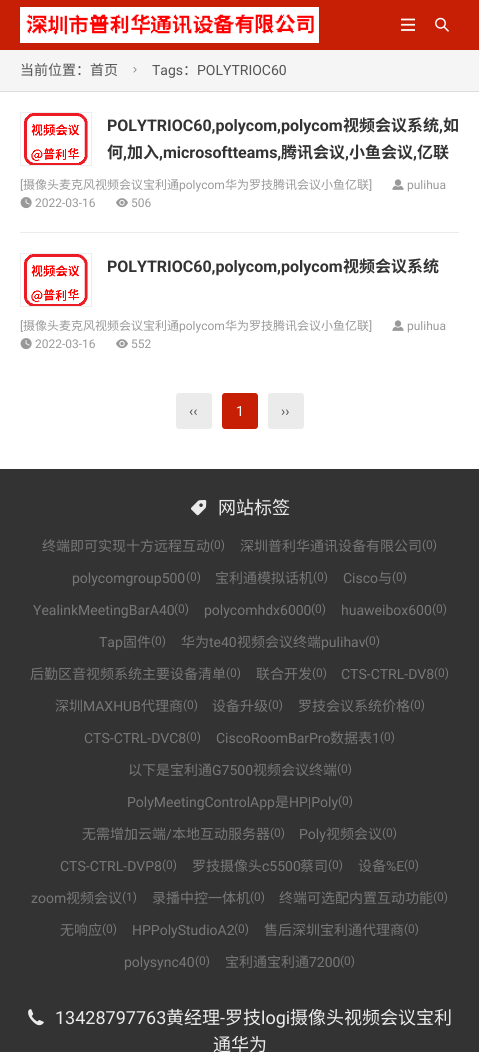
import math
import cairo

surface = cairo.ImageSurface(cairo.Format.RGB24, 479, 1052)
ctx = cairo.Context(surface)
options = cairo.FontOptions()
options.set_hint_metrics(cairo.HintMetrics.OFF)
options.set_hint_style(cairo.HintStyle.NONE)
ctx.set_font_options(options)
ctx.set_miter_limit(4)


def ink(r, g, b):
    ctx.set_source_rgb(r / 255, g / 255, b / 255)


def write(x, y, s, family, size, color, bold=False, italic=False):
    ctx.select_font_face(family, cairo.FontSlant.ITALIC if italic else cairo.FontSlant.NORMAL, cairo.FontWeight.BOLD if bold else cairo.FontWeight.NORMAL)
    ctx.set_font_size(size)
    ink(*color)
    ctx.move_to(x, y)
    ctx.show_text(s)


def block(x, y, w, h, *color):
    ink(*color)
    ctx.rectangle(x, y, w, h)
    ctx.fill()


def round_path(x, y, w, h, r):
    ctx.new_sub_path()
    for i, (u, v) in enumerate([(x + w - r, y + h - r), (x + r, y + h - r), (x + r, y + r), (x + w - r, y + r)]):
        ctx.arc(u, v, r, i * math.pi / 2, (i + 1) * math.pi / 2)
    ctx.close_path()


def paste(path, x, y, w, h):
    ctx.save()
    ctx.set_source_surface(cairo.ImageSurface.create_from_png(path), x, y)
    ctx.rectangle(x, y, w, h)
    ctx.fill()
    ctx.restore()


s1 = dict(family="Noto Sans CJK SC", size=14, color=(85, 85, 85))
s2 = dict(family="Roboto", size=14, color=(85, 85, 85))
s3 = dict(family="Roboto", size=16, color=(51, 51, 51), bold=True)
s4 = dict(family="Noto Sans CJK SC", size=16, color=(51, 51, 51), bold=True)
s5 = dict(family="Roboto", size=12, color=(153, 153, 153))
s6 = dict(family="Noto Sans CJK SC", size=12, color=(153, 153, 153))
s7 = dict(family="Roboto", size=14, color=(255, 255, 255))
s8 = dict(family="Noto Sans CJK SC", size=18, color=(235, 235, 235))
s9 = dict(family="Noto Sans CJK SC", size=14, color=(119, 119, 119))
s10 = dict(family="Roboto", size=12, color=(119, 119, 119))
s11 = dict(family="Roboto", size=14, color=(119, 119, 119))
s12 = dict(family="Roboto", size=18, color=(235, 235, 235))

ink(51, 51, 51)
ctx.paint()
block(0, 0, 479, 50, 199, 31, 5)
paste("pic1.png", 20, 7, 299, 36)
paste("pic2.png", 401, 18, 14, 13)
paste("pic3.png", 435, 17, 14, 15)
block(0, 92, 479, 377, 255, 255, 255)
block(0, 50, 479, 41, 245, 245, 245)
block(0, 91, 479, 1, 221, 221, 221)
write(20, 75, "当前位置：首页", **s1)
paste("pic4.png", 133, 67, 4, 6)
write(152, 75, "Tags", **s2)
write(183, 75, "：", **s1)
write(197, 75, "POLYTRIOC60", **s2)
ctx.rectangle(20.5, 112.5, 71, 53)
ink(237, 237, 237)
ctx.set_line_width(1)
ctx.stroke()
paste("pic5.png", 24, 113, 64, 52)
write(107, 131, "POLYTRIOC60,polycom,polycom", **s3)
write(343, 131, "视频会议系统", **s4)
write(439, 131, ",", **s3)
write(443, 131, "如", **s4)
write(107, 158, "何", **s4)
write(123, 158, ",", **s3)
write(127, 158, "加入", **s4)
write(159, 158, ",microsoftteams,", **s3)
write(281, 158, "腾讯会议", **s4)
write(345, 158, ",", **s3)
write(349, 158, "小鱼会议", **s4)
write(413, 158, ",", **s3)
write(417, 158, "亿联", **s4)
write(20, 189, "[", **s5)
write(23, 189, "摄像头麦克风视频会议宝利通", **s6)
write(179, 189, "polycom", **s5)
write(225, 189, "华为罗技腾讯会议小鱼亿联", **s6)
write(369, 189, "]", **s5)
paste("pic6.png", 392, 179, 12, 11)
write(407, 189, "pulihua", **s5)
paste("pic7.png", 20, 197, 12, 12)
write(35, 207, "2022-03-16", **s5)
paste("pic8.png", 116, 198, 12, 10)
write(131, 207, "506", **s5)
block(20, 232, 439, 1, 235, 235, 235)
ctx.rectangle(20.5, 253.5, 71, 53)
ink(237, 237, 237)
ctx.stroke()
paste("pic5.png", 24, 254, 64, 52)
write(107, 272, "POLYTRIOC60,polycom,polycom", **s3)
write(343, 272, "视频会议系统", **s4)
write(20, 330, "[", **s5)
write(23, 330, "摄像头麦克风视频会议宝利通", **s6)
write(179, 330, "polycom", **s5)
write(225, 330, "华为罗技腾讯会议小鱼亿联", **s6)
write(369, 330, "]", **s5)
paste("pic6.png", 392, 320, 12, 11)
write(407, 330, "pulihua", **s5)
paste("pic7.png", 20, 338, 12, 12)
write(35, 348, "2022-03-16", **s5)
paste("pic8.png", 116, 339, 12, 10)
write(131, 348, "552", **s5)
ink(235, 235, 235)
round_path(176, 393, 36, 36, 3)
ctx.fill()
write(189, 416, "‹‹", **s2)
ink(199, 31, 5)
round_path(222, 393, 36, 36, 3)
ctx.fill()
write(236, 416, "1", **s7)
ink(235, 235, 235)
round_path(268, 393, 36, 36, 3)
ctx.fill()
write(281, 416, "››", **s2)
paste("pic9.png", 191, 499, 16, 17)
write(218, 514, "网站标签", **s8)
write(42, 551, "终端即可实现十方远程互动", **s9)
write(210, 549, "(0)", **s10)
write(240, 551, "深圳普利华通讯设备有限公司", **s9)
write(422, 549, "(0)", **s10)
write(72, 583, "polycomgroup500", **s11)
write(186, 581, "(0)", **s10)
write(215, 583, "宝利通模拟话机", **s9)
write(313, 581, "(0)", **s10)
write(343, 583, "Cisco", **s11)
write(378, 583, "与", **s9)
write(392, 581, "(0)", **s10)
write(33, 615, "YealinkMeetingBarA40", **s11)
write(174, 613, "(0)", **s10)
write(204, 615, "polycomhdx6000", **s11)
write(311, 613, "(0)", **s10)
write(341, 615, "huaweibox600", **s11)
write(432, 613, "(0)", **s10)
write(99, 647, "Tap", **s11)
write(123, 647, "固件", **s9)
write(151, 645, "(0)", **s10)
write(181, 647, "华为", **s9)
write(209, 647, "te40", **s11)
write(237, 647, "视频会议终端", **s9)
write(321, 647, "pulihav", **s11)
write(365, 645, "(0)", **s10)
write(30, 679, "后勤区音视频系统主要设备清单", **s9)
write(226, 677, "(0)", **s10)
write(256, 679, "联合开发", **s9)
write(312, 677, "(0)", **s10)
write(341, 679, "CTS-CTRL-DV8", **s11)
write(434, 677, "(0)", **s10)
write(55, 711, "深圳", **s9)
write(83, 711, "MAXHUB", **s11)
write(141, 711, "代理商", **s9)
write(183, 709, "(0)", **s10)
write(212, 711, "设备升级", **s9)
write(268, 709, "(0)", **s10)
write(298, 711, "罗技会议系统价格", **s9)
write(410, 709, "(0)", **s10)
write(84, 743, "CTS-CTRL-DVC8", **s11)
write(186, 741, "(0)", **s10)
write(216, 743, "CiscoRoomBarPro", **s11)
write(330, 743, "数据表", **s9)
write(372, 743, "1", **s11)
write(380, 741, "(0)", **s10)
write(128, 775, "以下是宝利通", **s9)
write(212, 775, "G7500", **s11)
write(253, 775, "视频会议终端", **s9)
write(337, 773, "(0)", **s10)
write(127, 807, "PolyMeetingControlApp", **s11)
write(275, 807, "是", **s9)
write(289, 807, "HP|Poly", **s11)
write(338, 805, "(0)", **s10)
write(82, 839, "无需增加云端", **s9)
write(166, 839, "/", **s11)
write(172, 839, "本地互动服务器", **s9)
write(270, 837, "(0)", **s10)
write(299, 839, "Poly", **s11)
write(326, 839, "视频会议", **s9)
write(382, 837, "(0)", **s10)
write(60, 871, "CTS-CTRL-DVP8", **s11)
write(162, 869, "(0)", **s10)
write(192, 871, "罗技摄像头", **s9)
write(262, 871, "c5500", **s11)
write(300, 871, "蔡司", **s9)
write(328, 869, "(0)", **s10)
write(358, 871, "设备", **s9)
write(386, 871, "%E", **s11)
write(404, 869, "(0)", **s10)
write(31, 903, "zoom", **s11)
write(66, 903, "视频会议", **s9)
write(122, 901, "(1)", **s10)
write(152, 903, "录播中控一体机", **s9)
write(250, 901, "(0)", **s10)
write(279, 903, "终端可选配内置互动功能", **s9)
write(433, 901, "(0)", **s10)
write(60, 935, "无响应", **s9)
write(102, 933, "(0)", **s10)
write(132, 935, "HPPolyStudioA2", **s11)
write(234, 933, "(0)", **s10)
write(264, 935, "售后深圳宝利通代理商", **s9)
write(404, 933, "(0)", **s10)
write(124, 967, "polysync40", **s11)
write(195, 965, "(0)", **s10)
write(225, 967, "宝利通宝利通", **s9)
write(309, 967, "7200", **s11)
write(340, 965, "(0)", **s10)
paste("pic10.png", 28, 1009, 16, 17)
write(55, 1024, "13428797763", **s12)
write(166, 1024, "黄经理", **s8)
write(220, 1024, "-", **s12)
write(225, 1024, "罗技", **s8)
write(261, 1024, "logi", **s12)
write(290, 1024, "摄像头视频会议宝利", **s8)
write(213, 1051, "通华为", **s8)
surface.write_to_png("screenshot.png")
